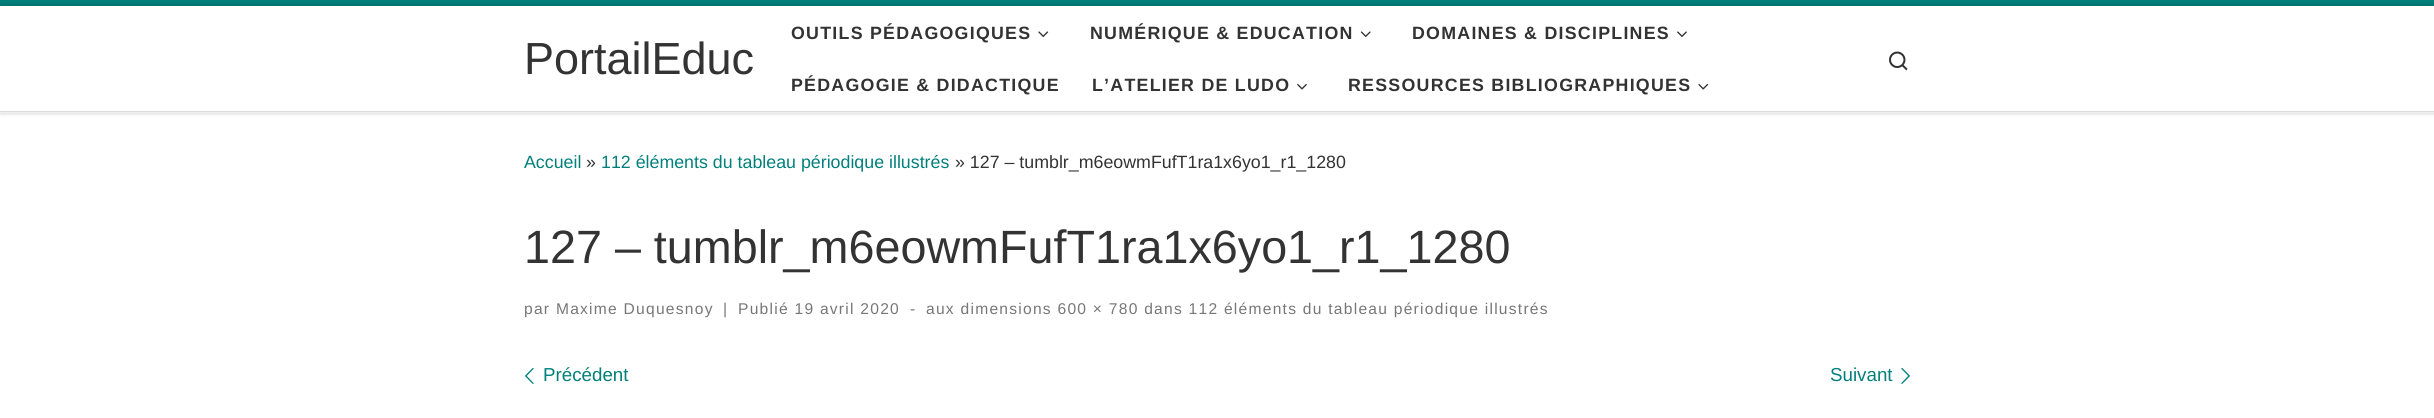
import math
import cairo

surface = cairo.ImageSurface(cairo.Format.RGB24, 2434, 418)
ctx = cairo.Context(surface)
options = cairo.FontOptions()
options.set_hint_metrics(cairo.HintMetrics.OFF)
options.set_hint_style(cairo.HintStyle.NONE)
ctx.set_font_options(options)
ctx.set_miter_limit(4)


def ink(r, g, b):
    ctx.set_source_rgb(r / 255, g / 255, b / 255)


def write(x, y, s, family, size, color, bold=False, italic=False):
    ctx.select_font_face(family, cairo.FontSlant.ITALIC if italic else cairo.FontSlant.NORMAL, cairo.FontWeight.BOLD if bold else cairo.FontWeight.NORMAL)
    ctx.set_font_size(size)
    ink(*color)
    ctx.move_to(x, y)
    ctx.show_text(s)


def write_spaced(x, y, s, letter, word):
    ctx.move_to(x, y)
    for ch in s:
        ctx.show_text(ch)
        ctx.rel_move_to(letter + word * (ch == ' '), 0)


def block(x, y, w, h, *color):
    ink(*color)
    ctx.rectangle(x, y, w, h)
    ctx.fill()


def round_path(x, y, w, h, r):
    ctx.new_sub_path()
    for i, (u, v) in enumerate([(x + w - r, y + h - r), (x + r, y + h - r), (x + r, y + r), (x + w - r, y + r)]):
        ctx.arc(u, v, r, i * math.pi / 2, (i + 1) * math.pi / 2)
    ctx.close_path()


def blur_box(x, y, w, h, r, blur, alpha):
    ctx.push_group_with_content(cairo.Content.ALPHA)
    ctx.set_operator(cairo.Operator.SOURCE)
    for i in range(15, -16, -2):
        e = blur * i / 6
        if min(w, h) + 2 * e > 0:
            ctx.set_source_rgba(0, 0, 0, alpha * math.erfc((i - 1) / 8.5) / 2)
            round_path(x - e, y - e, w + 2 * e, h + 2 * e, max(0, min(r + e + blur * .6, min(w, h) / 2 + e)))
            ctx.fill()
    ctx.mask(ctx.pop_group())


def paste(path, x, y, w, h):
    ctx.save()
    ctx.set_source_surface(cairo.ImageSurface.create_from_png(path), x, y)
    ctx.rectangle(x, y, w, h)
    ctx.fill()
    ctx.restore()


s1 = dict(family="Liberation Sans", size=45, color=(51, 51, 51))
s2 = dict(family="Liberation Sans", size=17.8, color=(1, 127, 123))
s3 = dict(family="Liberation Sans", size=17.8, color=(51, 51, 51))
s4 = dict(family="Liberation Sans", size=46.7, color=(51, 51, 51))
s5 = dict(family="Liberation Sans", size=18.75, color=(1, 127, 123))

ink(255, 255, 255)
ctx.paint()
ink(102, 102, 102)
blur_box(0, 3, 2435, 112, 0, 1, 0.08)
block(0, 112, 2434, 1, 255, 255, 255)
block(0, 0, 2434, 6, 1, 127, 123)
block(0, 111, 2434, 1, 236, 236, 236)
ctx.set_source_rgba(1, 1, 1, 0.15)
ctx.rectangle(0, 111, 2434, 1)
ctx.fill()
ink(0, 0, 0)
blur_box(0, 6, 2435, 105, 0, 3, 0.2)
block(0, 6, 2434, 105, 255, 255, 255)
write(524, 74, "PortailEduc", **s1)
ctx.select_font_face("Liberation Sans", cairo.FontSlant.NORMAL, cairo.FontWeight.BOLD)
ctx.set_font_size(17.8)
write_spaced(791, 39, "OUTILS PÉDAGOGIQUES", 1.25, 0)
paste("pic1.png", 1038, 31, 11, 7)
write_spaced(1090, 39, "NUMÉRIQUE & EDUCATION", 1.25, 0)
paste("pic2.png", 1360, 31, 11, 7)
write_spaced(1412, 39, "DOMAINES & DISCIPLINES", 1.25, 0)
paste("pic3.png", 1677, 31, 10, 7)
write_spaced(791, 91, "PÉDAGOGIE & DIDACTIQUE", 1.25, 0)
write_spaced(1092, 91, "L’ATELIER DE LUDO", 1.25, 0)
paste("pic4.png", 1297, 83, 10, 7)
write_spaced(1348, 91, "RESSOURCES BIBLIOGRAPHIQUES", 1.25, 0)
paste("pic5.png", 1698, 83, 11, 7)
paste("pic6.png", 1889, 51, 19, 20)
write(524, 168, "Accueil", **s2)
write(586, 168, "»", **s3)
write(601, 168, "112 éléments du tableau périodique illustrés", **s2)
write(955, 168, "» 127 – tumblr_m6eowmFufT1ra1x6yo1_r1_1280", **s3)
write(524, 263, "127 – tumblr_m6eowmFufT1ra1x6yo1_r1_1280", **s4)
ctx.set_font_size(15.6)
ink(119, 119, 119)
write_spaced(524, 314, "par Maxime Duquesnoy", 1.25, 0)
write_spaced(723, 314, "|", 1.25, 0)
write_spaced(738, 314, "Publié 19 avril 2020", 1.25, 0)
write_spaced(910, 314, "-", 1.25, 0)
write_spaced(926, 314, "aux dimensions 600 × 780 dans 112 éléments du tableau périodique illustrés", 1.25, 0)
paste("pic7.png", 525, 367, 9, 17)
write(543, 381, "Précédent", **s5)
write(1830, 381, "Suivant", **s5)
paste("pic8.png", 1901, 367, 9, 17)
surface.write_to_png("screenshot.png")
